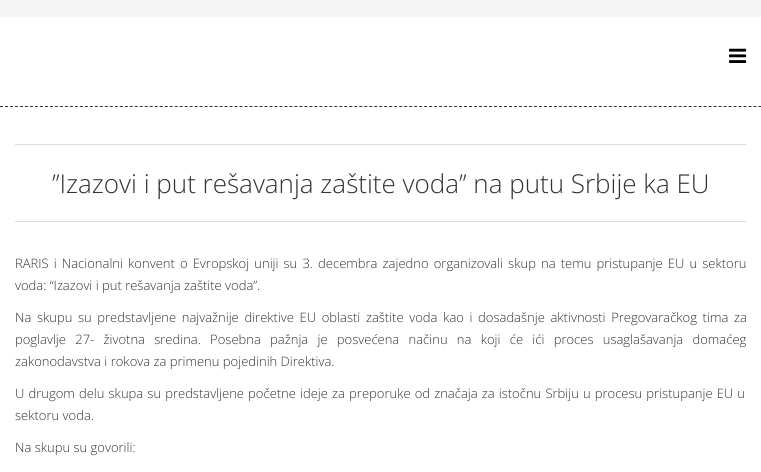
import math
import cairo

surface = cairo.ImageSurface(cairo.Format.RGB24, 761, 472)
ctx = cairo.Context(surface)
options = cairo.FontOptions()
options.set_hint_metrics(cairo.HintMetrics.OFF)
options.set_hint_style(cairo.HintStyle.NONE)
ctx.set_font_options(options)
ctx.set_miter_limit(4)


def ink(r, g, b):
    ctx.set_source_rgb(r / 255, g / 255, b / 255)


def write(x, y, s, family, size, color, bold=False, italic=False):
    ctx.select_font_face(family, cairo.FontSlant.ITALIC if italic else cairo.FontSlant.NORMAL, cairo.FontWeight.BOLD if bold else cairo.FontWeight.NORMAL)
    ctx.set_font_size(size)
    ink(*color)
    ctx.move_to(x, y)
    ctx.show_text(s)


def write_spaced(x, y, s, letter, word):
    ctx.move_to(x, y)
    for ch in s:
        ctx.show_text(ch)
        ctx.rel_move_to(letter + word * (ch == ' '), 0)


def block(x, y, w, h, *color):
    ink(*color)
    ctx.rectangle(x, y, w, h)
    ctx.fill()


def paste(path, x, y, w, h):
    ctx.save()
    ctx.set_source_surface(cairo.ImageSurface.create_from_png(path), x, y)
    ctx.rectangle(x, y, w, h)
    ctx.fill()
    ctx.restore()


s1 = dict(family="Open Sans Light", size=26, color=(51, 51, 51))
s2 = dict(family="Open Sans Light", size=13, color=(51, 51, 51))

ink(255, 255, 255)
ctx.paint()
block(0, 0, 761, 17, 245, 245, 245)
ctx.new_path()
ctx.move_to(0, 106.5)
ctx.line_to(761, 106.5)
ink(51, 51, 51)
ctx.set_line_width(1)
ctx.set_dash([3, 1.99])
ctx.stroke()
paste("pic1.png", 729, 48, 18, 15)
block(15, 144, 731, 1, 221, 221, 221)
block(15, 221, 731, 1, 221, 221, 221)
write(52, 193, "’’Izazovi i put rešavanja zaštite voda’’ na putu Srbije ka EU", **s1)
ctx.set_font_size(13)
write_spaced(15, 268, "RARIS i Nacionalni konvent o Evropskoj uniji su 3. decembra zajedno organizovali skup na temu pristupanje EU u sektoru", 0, 1.75)
write(15, 290, "voda: “Izazovi i put rešavanja zaštite voda’’.", **s2)
write_spaced(15, 322, "Na skupu su predstavljene najvažnije direktive EU oblasti zaštite voda kao i dosadašnje aktivnosti Pregovaračkog tima za", 0, 2.25)
write_spaced(15, 344, "poglavlje 27- životna sredina. Posebna pažnja je posvećena načinu na koji će ići proces usaglašavanja domaćeg", 0, 5.9)
write(15, 366, "zakonodavstva i rokova za primenu pojedinih Direktiva.", **s2)
write_spaced(15, 398, "U drugom delu skupa su predstavljene početne ideje za preporuke od značaja za istočnu Srbiju u procesu pristupanje EU u", 0, 0.75)
write(15, 420, "sektoru voda.", **s2)
write(15, 452, "Na skupu su govorili:", **s2)
surface.write_to_png("screenshot.png")
